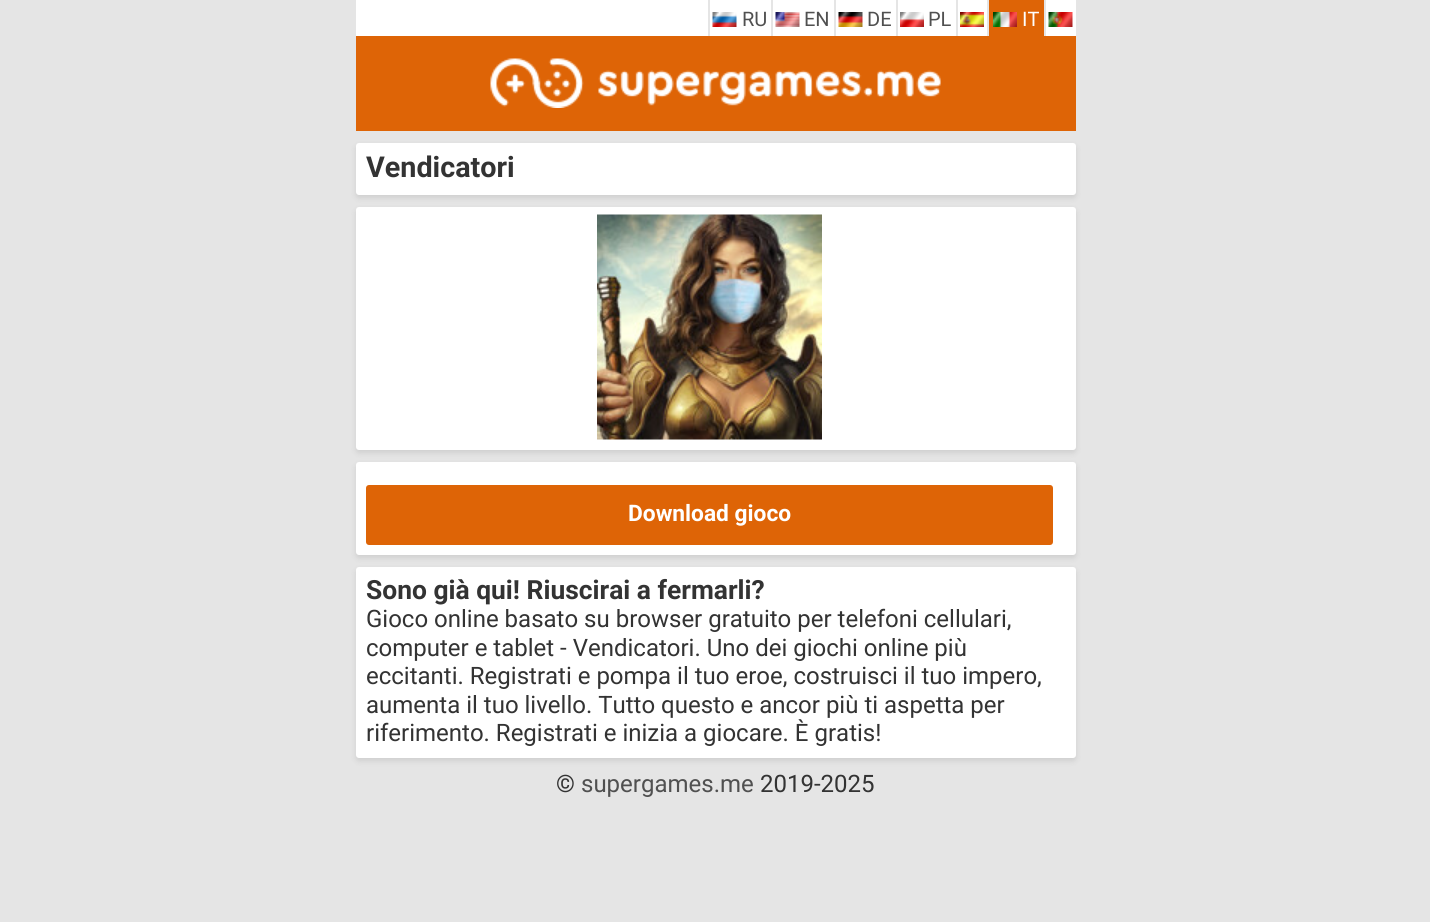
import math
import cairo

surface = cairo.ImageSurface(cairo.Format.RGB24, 1430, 922)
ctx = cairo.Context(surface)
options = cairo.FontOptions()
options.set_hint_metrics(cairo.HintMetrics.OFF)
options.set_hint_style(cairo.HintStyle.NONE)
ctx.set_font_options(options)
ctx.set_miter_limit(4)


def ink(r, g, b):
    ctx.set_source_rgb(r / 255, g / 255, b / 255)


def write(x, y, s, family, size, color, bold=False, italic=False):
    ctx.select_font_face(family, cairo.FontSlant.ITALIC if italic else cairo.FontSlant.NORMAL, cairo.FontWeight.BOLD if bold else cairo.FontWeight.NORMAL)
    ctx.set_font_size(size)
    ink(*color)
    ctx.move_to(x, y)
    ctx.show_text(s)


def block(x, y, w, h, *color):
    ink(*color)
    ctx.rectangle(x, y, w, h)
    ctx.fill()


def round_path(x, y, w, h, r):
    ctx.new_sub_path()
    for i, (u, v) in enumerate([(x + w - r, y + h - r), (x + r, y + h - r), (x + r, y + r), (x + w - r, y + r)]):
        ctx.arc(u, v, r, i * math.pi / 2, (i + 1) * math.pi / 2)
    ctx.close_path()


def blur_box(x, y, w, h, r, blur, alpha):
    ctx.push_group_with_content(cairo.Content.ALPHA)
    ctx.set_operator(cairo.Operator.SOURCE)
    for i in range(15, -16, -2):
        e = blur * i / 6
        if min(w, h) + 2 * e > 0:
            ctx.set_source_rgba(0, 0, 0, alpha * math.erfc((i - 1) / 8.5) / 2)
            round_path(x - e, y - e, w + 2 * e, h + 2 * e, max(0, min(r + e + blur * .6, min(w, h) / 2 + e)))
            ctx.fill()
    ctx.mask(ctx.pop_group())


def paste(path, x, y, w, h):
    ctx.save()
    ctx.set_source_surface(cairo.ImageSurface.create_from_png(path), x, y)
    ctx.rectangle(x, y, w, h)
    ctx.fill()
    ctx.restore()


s1 = dict(family="Roboto", size=20, color=(80, 80, 80))
s2 = dict(family="Roboto", size=20, color=(255, 255, 255))
s3 = dict(family="Roboto", size=28.75, color=(51, 51, 51), bold=True)
s4 = dict(family="Roboto", size=22.75, color=(255, 255, 255), bold=True)
s5 = dict(family="Roboto", size=26.4, color=(51, 51, 51), bold=True)
s6 = dict(family="Roboto", size=24, color=(51, 51, 51))
s7 = dict(family="Roboto", size=24, color=(80, 80, 80))

ink(229, 229, 229)
ctx.paint()
block(356, 0, 720, 36, 255, 255, 255)
block(708, 0, 2, 36, 229, 229, 229)
paste("pic1.png", 712, 12, 25, 15)
write(742, 26, "RU", **s1)
block(771, 0, 2, 36, 229, 229, 229)
paste("pic2.png", 775, 12, 25, 15)
write(804, 26, "EN", **s1)
block(834, 0, 2, 36, 229, 229, 229)
paste("pic3.png", 838, 12, 25, 15)
write(867, 26, "DE", **s1)
block(896, 0, 2, 36, 229, 229, 229)
paste("pic4.png", 900, 12, 24, 15)
write(928, 26, "PL", **s1)
block(956, 0, 2, 36, 229, 229, 229)
paste("pic5.png", 960, 12, 24, 15)
block(989, 0, 55, 36, 222, 100, 6)
block(987, 0, 2, 36, 229, 229, 229)
paste("pic6.png", 993, 12, 24, 15)
write(1022, 26, "IT", **s2)
block(1044, 0, 2, 36, 229, 229, 229)
paste("pic7.png", 1048, 12, 25, 15)
block(356, 36, 720, 95, 222, 100, 6)
paste("pic8.png", 490, 58, 451, 50)
ink(0, 0, 0)
blur_box(356, 146, 720, 52, 3, 3, 0.1)
ink(255, 255, 255)
round_path(356, 143, 720, 52, 3)
ctx.fill()
write(366, 177, "Vendicatori", **s3)
ink(0, 0, 0)
blur_box(356, 210, 720, 243, 3, 3, 0.1)
ink(255, 255, 255)
round_path(356, 207, 720, 243, 3)
ctx.fill()
paste("pic9.png", 597, 214, 225, 226)
ink(0, 0, 0)
blur_box(356, 465, 720, 93, 3, 3, 0.1)
ink(255, 255, 255)
round_path(356, 462, 720, 93, 3)
ctx.fill()
ink(222, 100, 6)
round_path(366, 485, 687, 60, 3)
ctx.fill()
write(628, 521, "Download gioco", **s4)
ink(0, 0, 0)
blur_box(356, 570, 720, 191, 3, 3, 0.1)
ink(255, 255, 255)
round_path(356, 567, 720, 191, 3)
ctx.fill()
write(366, 599, "Sono già qui! Riuscirai a fermarli?", **s5)
write(366, 627, "Gioco online basato su browser gratuito per telefoni cellulari,", **s6)
write(366, 656, "computer e tablet - Vendicatori. Uno dei giochi online più", **s6)
write(366, 684, "eccitanti. Registrati e pompa il tuo eroe, costruisci il tuo impero,", **s6)
write(366, 713, "aumenta il tuo livello. Tutto questo e ancor più ti aspetta per", **s6)
write(366, 741, "riferimento. Registrati e inizia a giocare. È gratis!", **s6)
write(556, 792, "©", **s6)
write(581, 792, "supergames.me", **s7)
write(760, 792, "2019-2025", **s6)
surface.write_to_png("screenshot.png")
